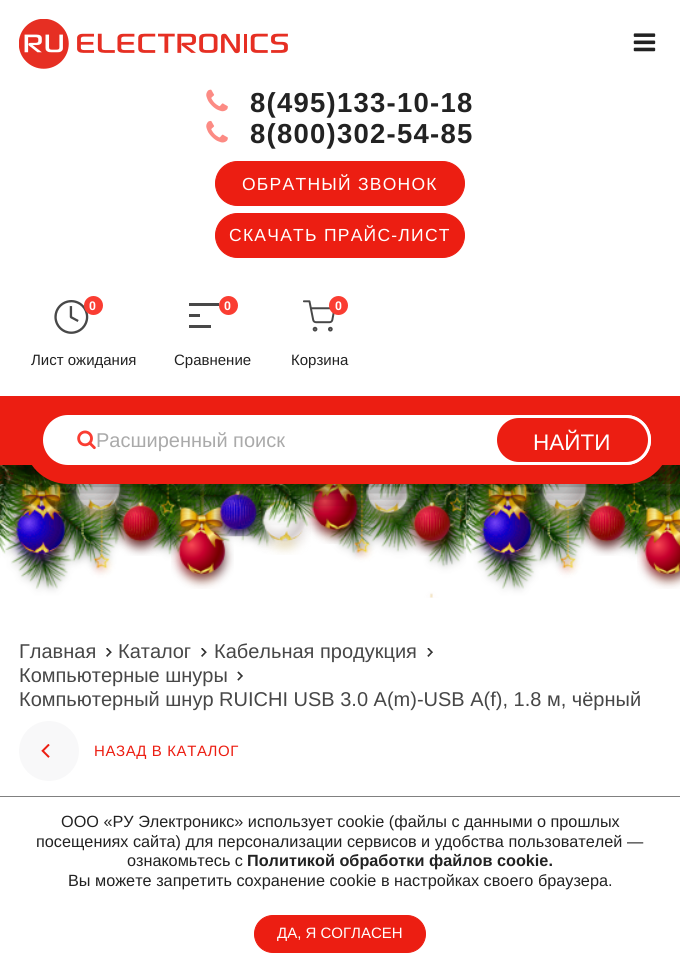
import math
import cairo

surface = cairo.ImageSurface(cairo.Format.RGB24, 680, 967)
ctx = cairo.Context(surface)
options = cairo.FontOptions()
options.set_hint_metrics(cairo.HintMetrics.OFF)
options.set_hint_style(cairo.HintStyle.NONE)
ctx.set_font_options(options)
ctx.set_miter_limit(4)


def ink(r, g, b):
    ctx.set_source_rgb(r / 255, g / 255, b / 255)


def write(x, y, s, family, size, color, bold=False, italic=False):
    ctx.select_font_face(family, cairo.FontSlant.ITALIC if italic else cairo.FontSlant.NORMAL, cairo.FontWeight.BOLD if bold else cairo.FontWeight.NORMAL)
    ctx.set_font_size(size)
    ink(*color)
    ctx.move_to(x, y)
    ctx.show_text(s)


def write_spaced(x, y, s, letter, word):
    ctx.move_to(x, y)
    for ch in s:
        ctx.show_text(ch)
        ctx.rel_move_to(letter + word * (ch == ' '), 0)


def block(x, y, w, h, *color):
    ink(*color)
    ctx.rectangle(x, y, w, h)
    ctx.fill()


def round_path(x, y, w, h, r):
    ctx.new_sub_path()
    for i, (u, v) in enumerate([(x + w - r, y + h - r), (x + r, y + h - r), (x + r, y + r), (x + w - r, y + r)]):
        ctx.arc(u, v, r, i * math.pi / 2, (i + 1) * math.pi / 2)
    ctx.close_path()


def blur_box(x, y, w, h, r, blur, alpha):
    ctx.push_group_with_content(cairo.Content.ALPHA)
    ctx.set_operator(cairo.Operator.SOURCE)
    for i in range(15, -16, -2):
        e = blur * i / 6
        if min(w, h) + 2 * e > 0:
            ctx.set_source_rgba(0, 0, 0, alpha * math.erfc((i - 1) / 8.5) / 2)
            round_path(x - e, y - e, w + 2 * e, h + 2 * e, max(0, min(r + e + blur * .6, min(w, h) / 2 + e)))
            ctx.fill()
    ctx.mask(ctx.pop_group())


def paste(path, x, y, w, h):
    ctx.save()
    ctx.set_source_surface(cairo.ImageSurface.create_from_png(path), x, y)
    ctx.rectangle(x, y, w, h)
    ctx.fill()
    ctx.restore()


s1 = dict(family="Roboto", size=12, color=(255, 255, 255), bold=True)
s2 = dict(family="Liberation Sans", size=15, color=(34, 34, 34))
s3 = dict(family="Liberation Sans", size=20, color=(170, 170, 170))
s4 = dict(family="Liberation Sans", size=22.5, color=(255, 255, 255))
s5 = dict(family="Liberation Sans", size=20, color=(71, 71, 71))
s6 = dict(family="Liberation Sans", size=16.25, color=(34, 34, 34))
s7 = dict(family="Liberation Sans", size=16.25, color=(34, 34, 34), bold=True)
s8 = dict(family="Liberation Sans", size=15, color=(255, 255, 255))

ink(255, 255, 255)
ctx.paint()
paste("pic1.png", 19, 19, 269, 50)
paste("pic2.png", 633, 33, 23, 19)
paste("pic3.png", 206, 89, 22, 23)
ctx.select_font_face("Liberation Sans", cairo.FontSlant.NORMAL, cairo.FontWeight.BOLD)
ctx.set_font_size(27.5)
ink(34, 34, 34)
write_spaced(250, 112, "8(495)133-10-18", 1.25, 0)
paste("pic4.png", 206, 120, 22, 23)
write_spaced(250, 143, "8(800)302-54-85", 1.25, 0)
ink(236, 30, 18)
round_path(215.5, 161.5, 249, 44, 22)
ctx.fill_preserve()
ctx.set_line_width(1)
ctx.stroke()
ctx.select_font_face("Liberation Sans")
ctx.set_font_size(17.5)
ink(255, 255, 255)
write_spaced(242, 190, "ОБРАТНЫЙ ЗВОНОК", 1.25, 0)
ink(236, 30, 18)
round_path(215.5, 213.5, 249, 44, 22)
ctx.fill_preserve()
ctx.stroke()
ink(255, 255, 255)
write_spaced(229, 241, "СКАЧАТЬ ПРАЙС-ЛИСТ", 1.25, 0)
paste("pic5.png", 54, 300, 35, 34)
ink(250, 61, 50)
ctx.arc(93.5, 305.5, 9.5, 0, 2 * math.pi)
ctx.fill()
write(89, 310, "0", **s1)
write(31, 365, "Лист ожидания", **s2)
block(189, 303, 30, 3, 72, 72, 72)
block(189, 325, 22, 3, 72, 72, 72)
block(189, 314, 11, 3, 72, 72, 72)
ink(250, 61, 50)
ctx.new_path()
ctx.arc(228.5, 305.5, 9.5, 0, 2 * math.pi)
ctx.fill()
write(224, 310, "0", **s1)
write(174, 365, "Сравнение", **s2)
paste("pic6.png", 303, 300, 32, 32)
ink(250, 61, 50)
ctx.arc(338.5, 305.5, 9.5, 0, 2 * math.pi)
ctx.fill()
write(335, 310, "0", **s1)
write(291, 365, "Корзина", **s2)
block(0, 396, 680, 88, 236, 30, 18)
paste("pic7.png", 0, 465, 680, 133)
paste("pic10.png", 8, 472, 65, 96)
paste("pic8.png", 0, 465, 32, 89)
paste("pic11.png", 67, 484, 62, 39)
paste("pic9.png", 31, 465, 68, 34)
paste("pic12.png", 114, 484, 52, 72)
paste("pic13.png", 171, 484, 63, 105)
paste("pic14.png", 212, 484, 51, 53)
paste("pic16.png", 255, 484, 56, 71)
paste("pic15.png", 221, 484, 36, 20)
paste("pic18.png", 304, 484, 61, 60)
paste("pic17.png", 256, 484, 63, 44)
paste("pic19.png", 359, 484, 57, 42)
paste("pic21.png", 406, 484, 52, 72)
paste("pic20.png", 364, 484, 81, 16)
paste("pic22.png", 458, 484, 9, 67)
paste("pic25.png", 474, 484, 65, 84)
paste("pic23.png", 466, 484, 32, 70)
paste("pic24.png", 637, 465, 43, 124)
paste("pic27.png", 534, 484, 61, 39)
paste("pic26.png", 497, 484, 68, 14)
paste("pic28.png", 581, 484, 51, 72)
paste("pic29.png", 678, 509, 2, 17)
ctx.save()
ctx.rectangle(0, 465, 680, 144)
ctx.clip()
ink(0, 0, 0)
blur_box(0, 340, 680, 144, 0, 19, 0.75)
ctx.restore()
ink(255, 255, 255)
round_path(33.5, 405.5, 627, 69, 34.5)
ctx.fill_preserve()
ink(236, 30, 18)
ctx.set_line_width(19)
ctx.stroke()
paste("pic30.png", 77, 430, 19, 20)
write(96, 447, "Расширенный поиск", **s3)
ink(236, 30, 18)
round_path(495.5, 416.5, 154, 47, 23.5)
ctx.fill_preserve()
ink(255, 255, 255)
ctx.set_line_width(3)
ctx.stroke()
write(533, 450, "НАЙТИ", **s4)
write(19, 658, "Главная", **s5)
paste("pic31.png", 106, 648, 6, 9)
write(118, 658, "Каталог", **s5)
paste("pic31.png", 201, 648, 6, 9)
write(214, 658, "Кабельная продукция", **s5)
paste("pic32.png", 427, 648, 6, 9)
write(19, 682, "Компьютерные шнуры", **s5)
paste("pic33.png", 237, 671, 6, 10)
write(19, 706, "Компьютерный шнур RUICHI USB 3.0 A(m)-USB A(f), 1.8 м, чёрный", **s5)
ink(248, 248, 249)
ctx.new_path()
ctx.arc(49, 751, 30, 0, 2 * math.pi)
ctx.fill()
paste("pic34.png", 41, 744, 9, 14)
ctx.set_font_size(15)
ink(236, 30, 18)
write_spaced(94, 756, "НАЗАД В КАТАЛОГ", 0.6, 0)
block(0, 796, 680, 1, 128, 128, 128)
write(61, 827, "ООО «РУ Электроникс» использует cookie (файлы с данными о прошлых", **s6)
write(36, 847, "посещениях сайта) для персонализации сервисов и удобства пользователей —", **s6)
write(127, 866, "ознакомьтесь с", **s6)
write(247, 866, "Политикой обработки файлов cookie.", **s7)
write(68, 886, "Вы можете запретить сохранение cookie в настройках своего браузера.", **s6)
ink(236, 30, 18)
round_path(254.5, 915.5, 171, 37, 18.5)
ctx.fill_preserve()
ctx.set_line_width(1)
ctx.stroke()
write(277, 938, "ДА, Я СОГЛАСЕН", **s8)
surface.write_to_png("screenshot.png")
